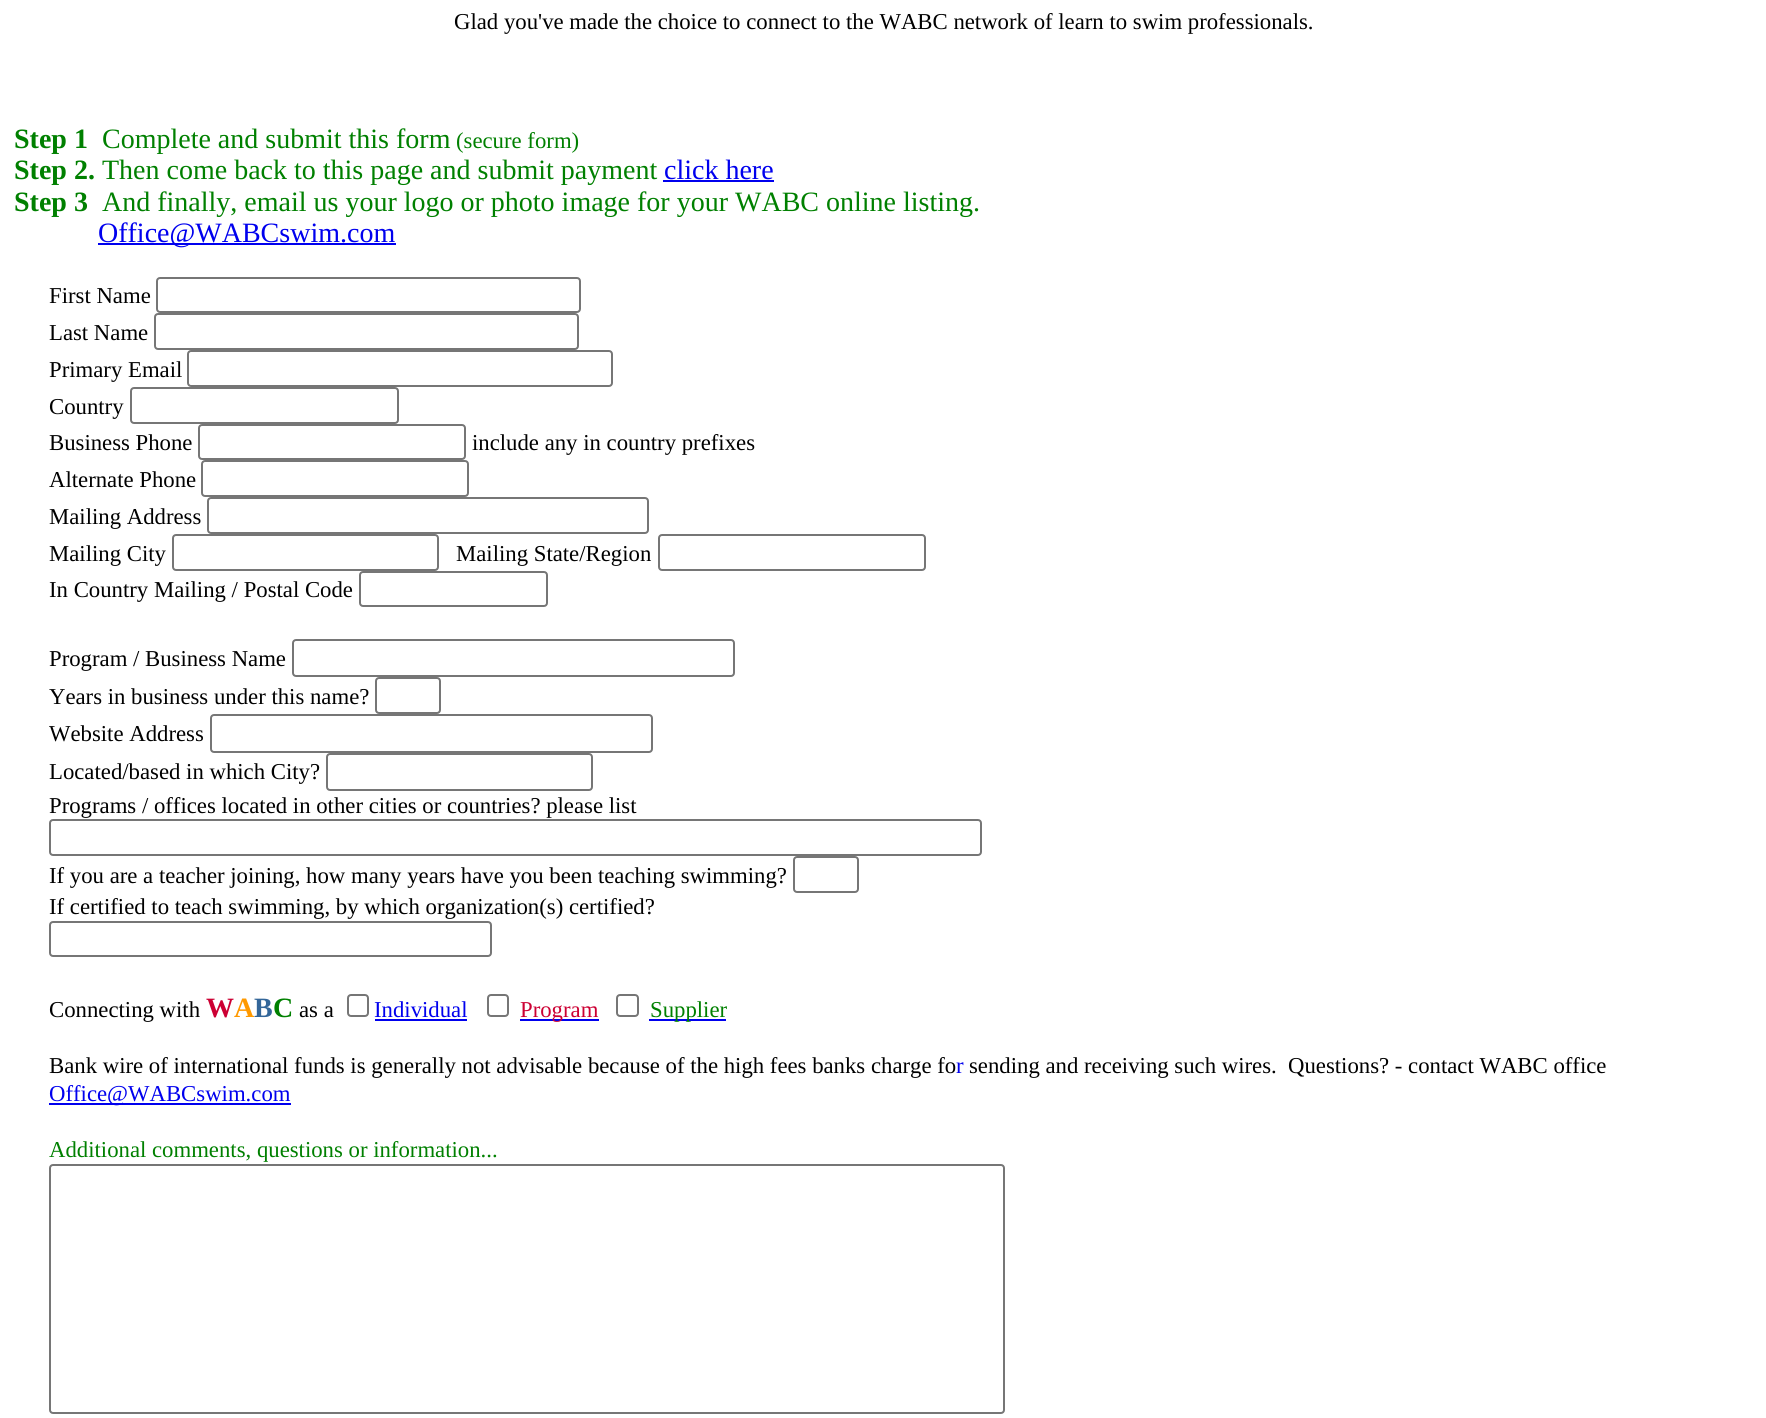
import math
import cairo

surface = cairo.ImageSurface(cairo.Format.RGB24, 1766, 1418)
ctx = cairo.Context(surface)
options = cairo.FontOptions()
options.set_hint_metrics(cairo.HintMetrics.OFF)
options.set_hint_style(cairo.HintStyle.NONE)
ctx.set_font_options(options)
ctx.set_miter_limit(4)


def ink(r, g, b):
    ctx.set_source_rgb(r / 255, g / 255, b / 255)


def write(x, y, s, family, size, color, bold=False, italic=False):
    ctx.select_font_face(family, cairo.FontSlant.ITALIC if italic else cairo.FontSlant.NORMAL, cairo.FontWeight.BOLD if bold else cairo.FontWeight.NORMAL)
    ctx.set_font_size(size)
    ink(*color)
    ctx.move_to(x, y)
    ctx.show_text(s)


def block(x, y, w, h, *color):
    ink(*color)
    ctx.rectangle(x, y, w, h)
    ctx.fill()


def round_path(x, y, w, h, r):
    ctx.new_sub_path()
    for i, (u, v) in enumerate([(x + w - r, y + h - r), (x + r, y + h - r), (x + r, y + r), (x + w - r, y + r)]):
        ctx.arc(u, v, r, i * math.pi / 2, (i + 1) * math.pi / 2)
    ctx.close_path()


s1 = dict(family="Liberation Serif", size=22.75, color=(0, 0, 0))
s2 = dict(family="Liberation Serif", size=28, color=(0, 128, 0), bold=True)
s3 = dict(family="Liberation Serif", size=28, color=(0, 128, 0))
s4 = dict(family="Liberation Serif", size=22.75, color=(0, 128, 0))
s5 = dict(family="Liberation Serif", size=28, color=(0, 0, 238))
s6 = dict(family="Liberation Serif", size=28, color=(204, 0, 51), bold=True)
s7 = dict(family="Liberation Serif", size=28, color=(255, 153, 0), bold=True)
s8 = dict(family="Liberation Serif", size=28, color=(51, 102, 153), bold=True)
s9 = dict(family="Liberation Serif", size=22.75, color=(0, 0, 238))
s10 = dict(family="Liberation Serif", size=22.75, color=(204, 0, 51))

ink(255, 255, 255)
ctx.paint()
write(454, 29, "Glad you've made the choice to connect to the WABC network of learn to swim professionals.", **s1)
write(14, 148, "Step 1", **s2)
write(102, 148, "Complete and submit this form", **s3)
write(456, 148, "(secure form)", **s4)
write(14, 179, "Step 2.", **s2)
write(102, 179, "Then come back to this page and submit payment", **s3)
write(664, 179, "click here", **s5)
block(663, 180, 111, 2, 0, 0, 238)
write(14, 211, "Step 3", **s2)
write(102, 211, "And finally, email us your logo or photo image for your WABC online listing.", **s3)
block(98, 243, 298, 2, 0, 0, 238)
write(98, 242, "Office@WABCswim.com", **s5)
write(49, 303, "First Name", **s1)
round_path(157, 278, 423, 34, 3)
ink(118, 118, 118)
ctx.stroke()
write(49, 340, "Last Name", **s1)
round_path(155, 314, 423, 35, 3)
ink(118, 118, 118)
ctx.stroke()
write(49, 377, "Primary Email", **s1)
round_path(188, 351, 424, 35, 3)
ink(118, 118, 118)
ctx.stroke()
write(49, 414, "Country", **s1)
round_path(131, 388, 267, 35, 3)
ink(118, 118, 118)
ctx.stroke()
write(49, 450, "Business Phone", **s1)
round_path(199, 425, 266, 34, 3)
ink(118, 118, 118)
ctx.stroke()
write(472, 450, "include any in country prefixes", **s1)
write(49, 487, "Alternate Phone", **s1)
round_path(202, 461, 266, 35, 3)
ink(118, 118, 118)
ctx.stroke()
write(49, 524, "Mailing Address", **s1)
round_path(208, 498, 440, 35, 3)
ink(118, 118, 118)
ctx.stroke()
write(49, 561, "Mailing City", **s1)
round_path(173, 535, 265, 35, 3)
ink(118, 118, 118)
ctx.stroke()
write(456, 561, "Mailing State/Region", **s1)
round_path(659, 535, 266, 35, 3)
ink(118, 118, 118)
ctx.stroke()
write(49, 597, "In Country Mailing / Postal Code", **s1)
round_path(360, 572, 187, 34, 3)
ink(118, 118, 118)
ctx.stroke()
write(49, 666, "Program / Business Name", **s1)
round_path(293, 640, 441, 36, 3)
ink(118, 118, 118)
ctx.stroke()
write(49, 704, "Years in business under this name?", **s1)
round_path(376, 678, 64, 35, 3)
ink(118, 118, 118)
ctx.stroke()
write(49, 741, "Website Address", **s1)
round_path(211, 715, 441, 37, 3)
ink(118, 118, 118)
ctx.stroke()
write(49, 779, "Located/based in which City?", **s1)
round_path(327, 754, 265, 36, 3)
ink(118, 118, 118)
ctx.stroke()
write(49, 813, "Programs / offices located in other cities or countries? please list", **s1)
round_path(50, 820, 931, 35, 3)
ink(118, 118, 118)
ctx.stroke()
write(49, 883, "If you are a teacher joining, how many years have you been teaching swimming?", **s1)
round_path(794, 857, 64, 35, 3)
ink(118, 118, 118)
ctx.stroke()
write(49, 914, "If certified to teach swimming, by which organization(s) certified?", **s1)
round_path(50, 922, 441, 34, 3)
ink(118, 118, 118)
ctx.stroke()
write(49, 1017, "Connecting with", **s1)
write(206, 1017, "W", **s6)
write(234, 1017, "A", **s7)
write(254, 1017, "B", **s8)
write(273, 1017, "C", **s2)
write(299, 1017, "as a", **s1)
round_path(348, 995, 20, 21, 3)
ink(118, 118, 118)
ctx.stroke()
write(374, 1017, "Individual", **s9)
block(375, 1019, 92, 2, 0, 0, 238)
round_path(488, 995, 20, 21, 3)
ink(118, 118, 118)
ctx.stroke()
block(520, 1019, 79, 2, 0, 0, 238)
write(520, 1017, "Program", **s10)
round_path(617, 995, 21, 21, 3)
ink(118, 118, 118)
ctx.stroke()
block(649, 1019, 77, 2, 0, 0, 238)
write(650, 1017, "Supplier", **s4)
write(49, 1073, "Bank wire of international funds is generally not advisable because of the high fees banks charge fo", **s1)
write(956, 1073, "r", **s9)
write(969, 1073, "sending and receiving such wires.  Questions? - contact WABC office", **s1)
block(49, 1103, 242, 2, 0, 0, 238)
write(49, 1101, "Office@WABCswim.com", **s9)
write(49, 1157, "Additional comments, questions or information...", **s4)
round_path(50, 1165, 954, 248, 3)
ink(118, 118, 118)
ctx.stroke()
surface.write_to_png("screenshot.png")
